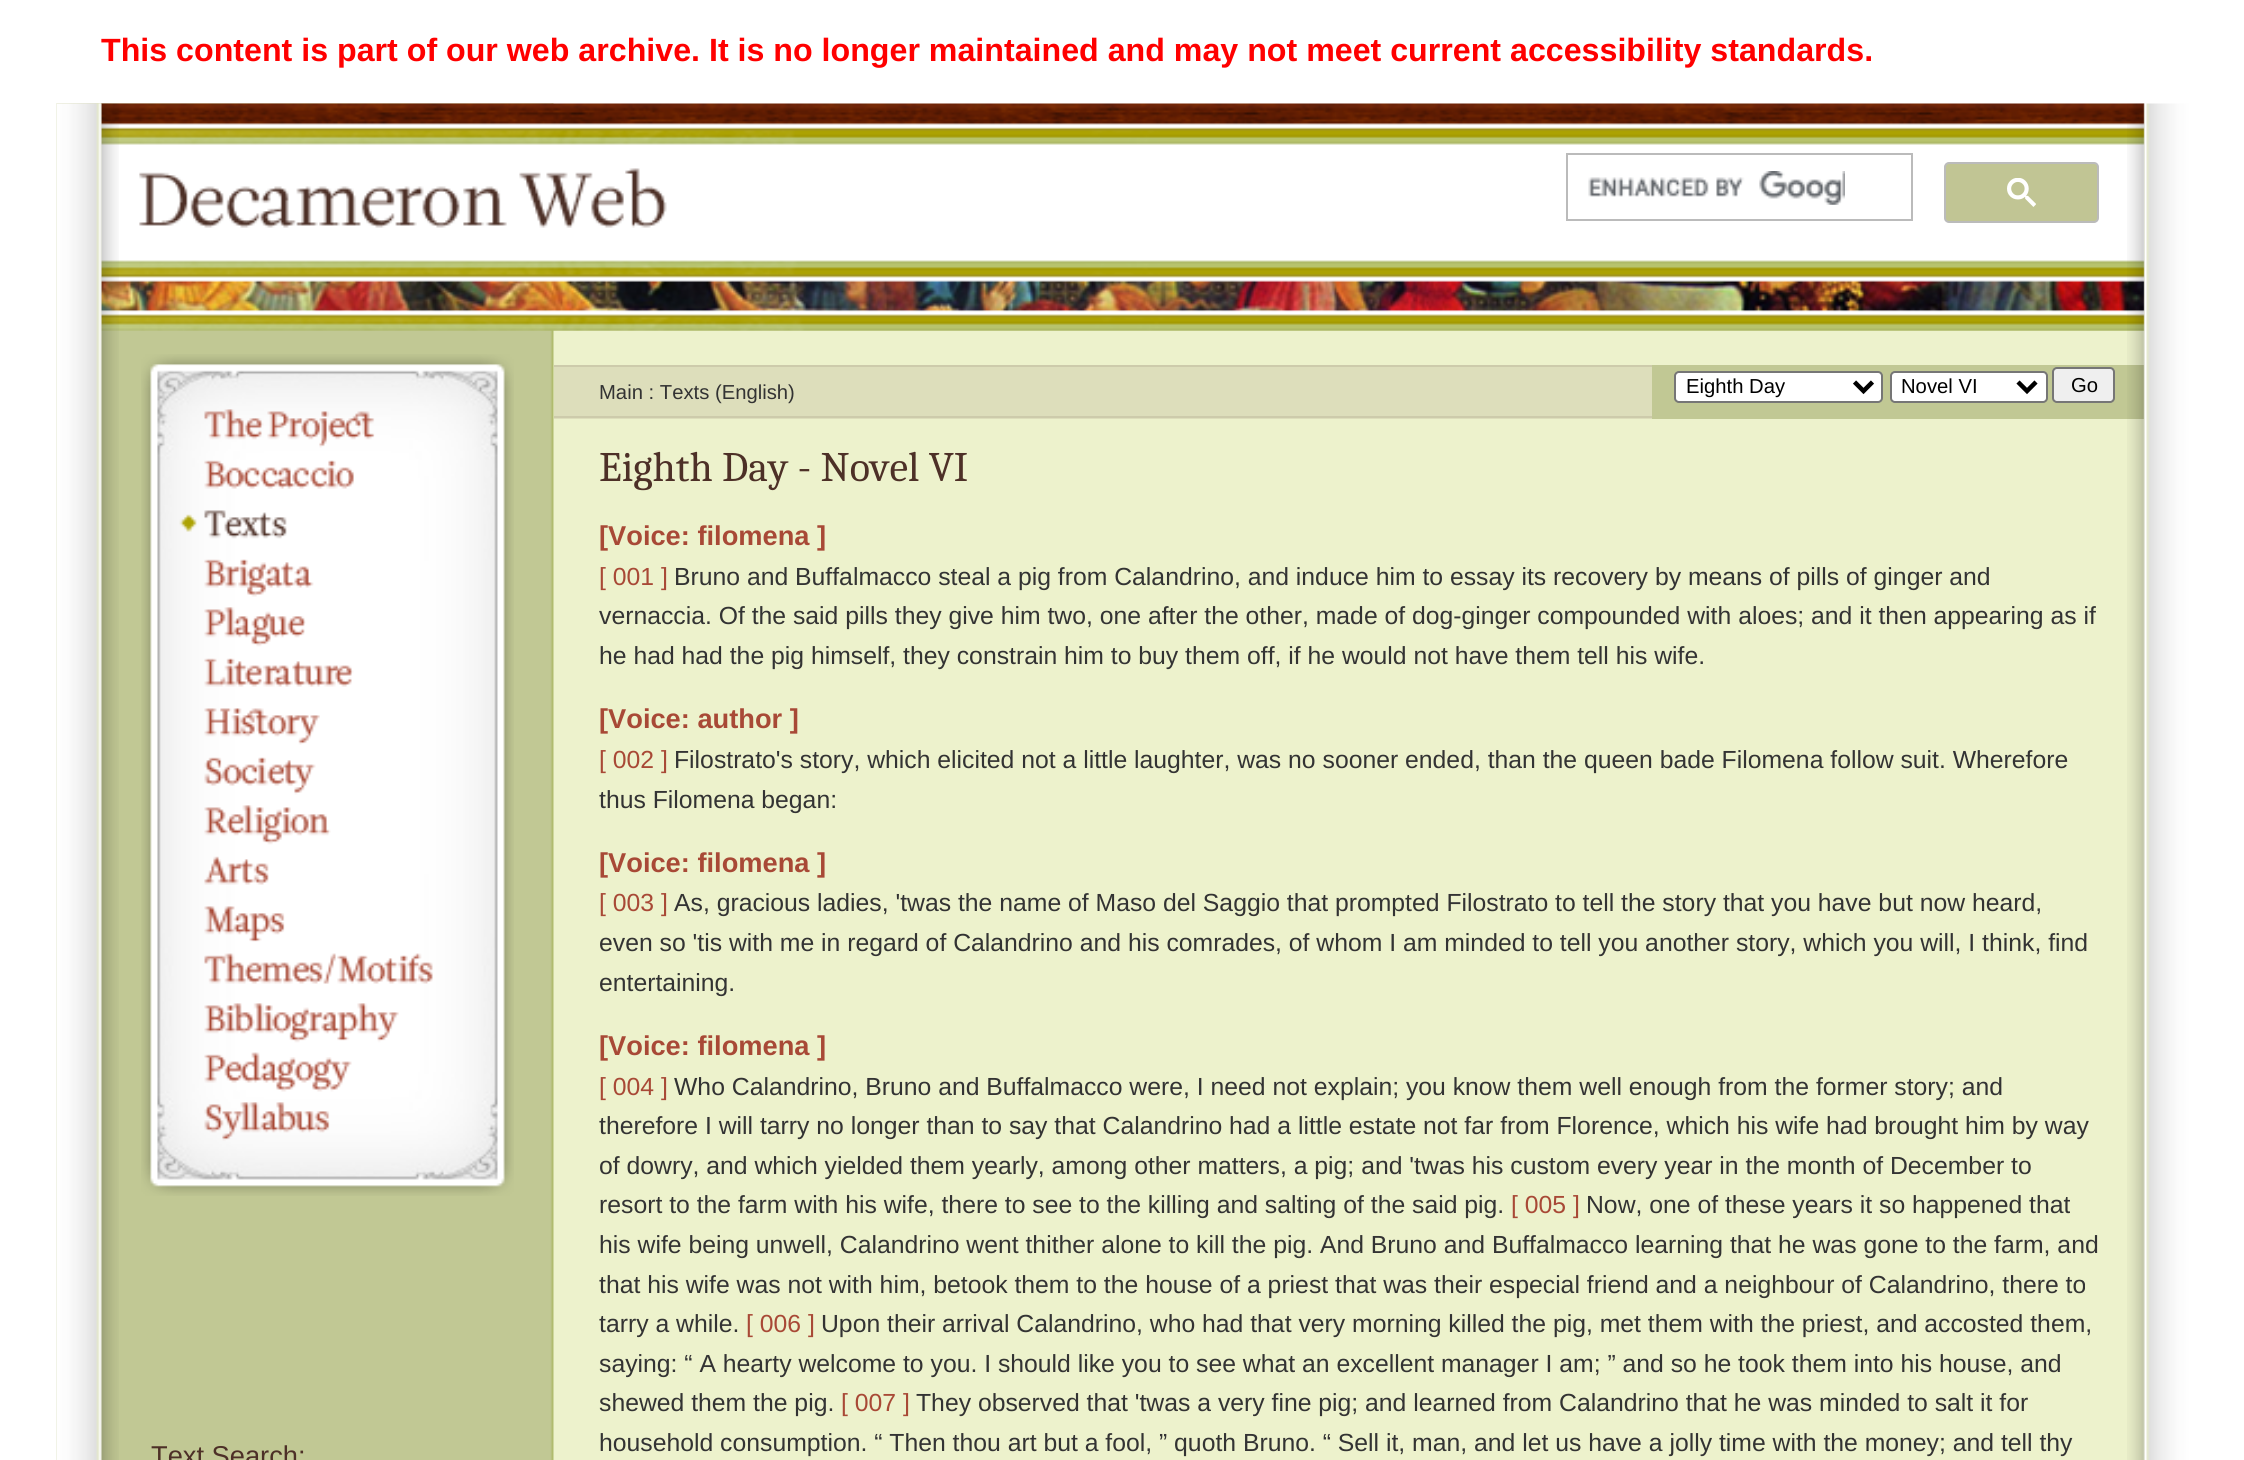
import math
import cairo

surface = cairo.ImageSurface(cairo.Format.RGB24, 2244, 1460)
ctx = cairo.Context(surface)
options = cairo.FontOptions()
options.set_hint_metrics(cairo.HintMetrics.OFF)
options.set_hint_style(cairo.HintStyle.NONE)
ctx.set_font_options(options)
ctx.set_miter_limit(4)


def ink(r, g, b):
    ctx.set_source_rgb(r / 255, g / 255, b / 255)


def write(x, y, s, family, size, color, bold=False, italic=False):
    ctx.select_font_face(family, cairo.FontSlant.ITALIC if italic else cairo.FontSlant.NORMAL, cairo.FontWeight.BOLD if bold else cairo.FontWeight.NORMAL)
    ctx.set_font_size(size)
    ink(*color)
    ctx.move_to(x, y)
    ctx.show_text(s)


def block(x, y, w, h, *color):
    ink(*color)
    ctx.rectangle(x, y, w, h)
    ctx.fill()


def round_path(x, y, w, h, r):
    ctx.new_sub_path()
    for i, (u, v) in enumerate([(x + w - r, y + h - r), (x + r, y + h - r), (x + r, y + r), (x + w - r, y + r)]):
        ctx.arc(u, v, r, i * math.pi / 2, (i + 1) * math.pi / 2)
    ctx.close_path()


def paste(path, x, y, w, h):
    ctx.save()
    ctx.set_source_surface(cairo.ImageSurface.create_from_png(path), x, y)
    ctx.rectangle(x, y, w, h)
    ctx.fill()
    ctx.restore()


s1 = dict(family="Liberation Sans", size=32.18, color=(255, 0, 0), bold=True)
s2 = dict(family="Liberation Sans", size=27.25, color=(77, 48, 39))
s3 = dict(family="Liberation Sans", size=20.25, color=(51, 51, 51))
s4 = dict(family="Liberation Sans", size=20.25, color=(0, 0, 0))
s5 = dict(family="Caladea", size=42, color=(77, 48, 39))
s6 = dict(family="Liberation Sans", size=27.25, color=(168, 73, 54), bold=True)
s7 = dict(family="Liberation Sans", size=24.75, color=(168, 73, 54))
s8 = dict(family="Liberation Sans", size=24.75, color=(51, 51, 51))

ink(255, 255, 255)
ctx.paint()
write(101, 61, "This content is part of our web archive. It is no longer maintained and may not meet current accessibility standards.", **s1)
block(56, 104, 2089, 1356, 237, 242, 204)
paste("pic1.png", 56, 103, 498, 1357)
paste("pic3.png", 101, 103, 2044, 228)
paste("pic2.png", 56, 103, 63, 1357)
ctx.rectangle(1567, 154, 345, 66)
ink(187, 187, 187)
ctx.stroke()
paste("pic4.png", 1588, 171, 257, 34)
ink(193, 197, 148)
round_path(1945, 163, 153, 59, 4)
ctx.fill_preserve()
ink(187, 187, 187)
ctx.stroke()
paste("pic5.png", 2007, 178, 29, 29)
block(1652, 365, 492, 54, 193, 200, 148)
paste("pic6.png", 2127, 103, 62, 1357)
paste("pic7.png", 141, 354, 373, 842)
paste("pic8.png", 204, 409, 171, 39)
paste("pic9.png", 204, 460, 150, 29)
paste("pic10.png", 179, 510, 108, 29)
paste("pic11.png", 204, 559, 110, 38)
paste("pic12.png", 204, 607, 102, 40)
paste("pic13.png", 204, 658, 150, 29)
paste("pic14.png", 204, 708, 116, 37)
paste("pic15.png", 204, 757, 112, 38)
paste("pic16.png", 204, 805, 127, 40)
paste("pic17.png", 204, 856, 65, 29)
paste("pic18.png", 204, 906, 81, 36)
paste("pic19.png", 204, 953, 229, 31)
paste("pic20.png", 204, 1003, 195, 40)
paste("pic21.png", 204, 1052, 148, 40)
paste("pic22.png", 204, 1102, 126, 39)
write(151, 1465, "Text Search:", **s2)
block(554, 367, 1098, 52, 221, 222, 187)
block(554, 365, 1098, 2, 205, 203, 171)
block(554, 416, 1098, 2, 205, 203, 171)
write(599, 399, "Main : Texts (English)", **s3)
ink(255, 255, 255)
round_path(1675, 372, 207, 30, 4)
ctx.fill_preserve()
ink(118, 118, 118)
ctx.stroke()
ctx.new_path()
ctx.move_to(1854.5, 382)
ctx.line_to(1863.5, 391)
ctx.line_to(1872.5, 382)
ink(0, 0, 0)
ctx.set_line_width(4.5)
ctx.stroke()
write(1686, 393, "Eighth Day", **s4)
ink(255, 255, 255)
round_path(1891, 372, 156, 30, 4)
ctx.fill_preserve()
ink(118, 118, 118)
ctx.set_line_width(2)
ctx.stroke()
ctx.new_path()
ctx.move_to(2018, 382)
ctx.line_to(2027, 391)
ctx.line_to(2036, 382)
ink(0, 0, 0)
ctx.set_line_width(4.5)
ctx.stroke()
write(1901, 393, "Novel VI", **s4)
ink(239, 239, 239)
round_path(2053, 368, 61, 34, 4)
ctx.fill_preserve()
ink(118, 118, 118)
ctx.set_line_width(2)
ctx.stroke()
write(2071, 392, "Go", **s4)
write(599, 481, "Eighth Day - Novel VI", **s5)
write(599, 545, "[Voice: filomena ]", **s6)
write(599, 585, "[ 001 ]", **s7)
write(674, 585, "Bruno and Buffalmacco steal a pig from Calandrino, and induce him to essay its recovery by means of pills of ginger and", **s8)
write(599, 624, "vernaccia. Of the said pills they give him two, one after the other, made of dog-ginger compounded with aloes; and it then appearing as if", **s8)
write(599, 664, "he had had the pig himself, they constrain him to buy them off, if he would not have them tell his wife.", **s8)
write(599, 728, "[Voice: author ]", **s6)
write(599, 768, "[ 002 ]", **s7)
write(674, 768, "Filostrato's story, which elicited not a little laughter, was no sooner ended, than the queen bade Filomena follow suit. Wherefore", **s8)
write(599, 808, "thus Filomena began:", **s8)
write(599, 872, "[Voice: filomena ]", **s6)
write(599, 911, "[ 003 ]", **s7)
write(674, 911, "As, gracious ladies, 'twas the name of Maso del Saggio that prompted Filostrato to tell the story that you have but now heard,", **s8)
write(599, 951, "even so 'tis with me in regard of Calandrino and his comrades, of whom I am minded to tell you another story, which you will, I think, find", **s8)
write(599, 991, "entertaining.", **s8)
write(599, 1055, "[Voice: filomena ]", **s6)
write(599, 1095, "[ 004 ]", **s7)
write(674, 1095, "Who Calandrino, Bruno and Buffalmacco were, I need not explain; you know them well enough from the former story; and", **s8)
write(599, 1134, "therefore I will tarry no longer than to say that Calandrino had a little estate not far from Florence, which his wife had brought him by way", **s8)
write(599, 1174, "of dowry, and which yielded them yearly, among other matters, a pig; and 'twas his custom every year in the month of December to", **s8)
write(599, 1213, "resort to the farm with his wife, there to see to the killing and salting of the said pig.", **s8)
write(1511, 1213, "[ 005 ]", **s7)
write(1586, 1213, "Now, one of these years it so happened that", **s8)
write(599, 1253, "his wife being unwell, Calandrino went thither alone to kill the pig. And Bruno and Buffalmacco learning that he was gone to the farm, and", **s8)
write(599, 1293, "that his wife was not with him, betook them to the house of a priest that was their especial friend and a neighbour of Calandrino, there to", **s8)
write(599, 1332, "tarry a while.", **s8)
write(746, 1332, "[ 006 ]", **s7)
write(821, 1332, "Upon their arrival Calandrino, who had that very morning killed the pig, met them with the priest, and accosted them,", **s8)
write(599, 1372, "saying: “ A hearty welcome to you. I should like you to see what an excellent manager I am; ” and so he took them into his house, and", **s8)
write(599, 1411, "shewed them the pig.", **s8)
write(841, 1411, "[ 007 ]", **s7)
write(916, 1411, "They observed that 'twas a very fine pig; and learned from Calandrino that he was minded to salt it for", **s8)
write(599, 1451, "household consumption. “ Then thou art but a fool, ” quoth Bruno. “ Sell it, man, and let us have a jolly time with the money; and tell thy", **s8)
surface.write_to_png("screenshot.png")
